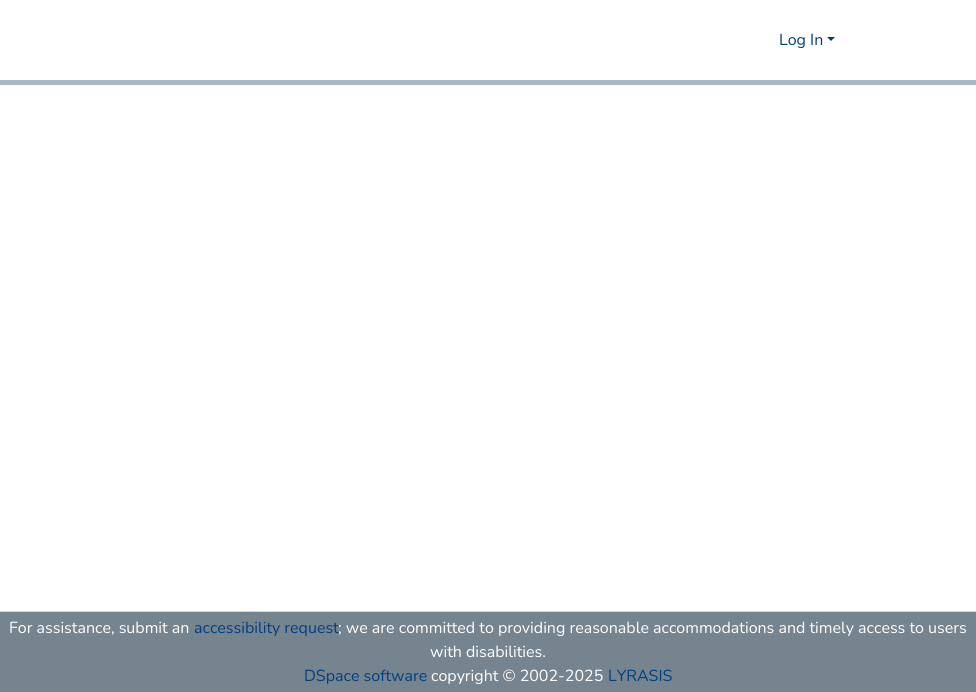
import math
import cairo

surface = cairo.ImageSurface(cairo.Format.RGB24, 976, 692)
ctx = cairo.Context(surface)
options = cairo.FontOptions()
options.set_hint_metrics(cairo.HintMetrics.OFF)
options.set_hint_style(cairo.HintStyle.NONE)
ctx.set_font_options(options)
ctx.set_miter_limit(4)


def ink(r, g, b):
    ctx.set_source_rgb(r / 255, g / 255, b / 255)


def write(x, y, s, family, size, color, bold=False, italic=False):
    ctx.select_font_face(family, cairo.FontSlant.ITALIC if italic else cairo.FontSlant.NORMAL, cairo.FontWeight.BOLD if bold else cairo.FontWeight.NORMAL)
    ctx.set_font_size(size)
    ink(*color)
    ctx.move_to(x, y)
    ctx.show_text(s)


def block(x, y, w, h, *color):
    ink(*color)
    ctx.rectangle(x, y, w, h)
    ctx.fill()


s1 = dict(family="Nunito", size=16, color=(0, 63, 127))
s2 = dict(family="Nunito", size=16, color=(255, 255, 255))

ink(255, 255, 255)
ctx.paint()
block(0, 80, 976, 5, 170, 184, 198)
write(779, 45, "Log In", **s1)
ctx.new_path()
ctx.move_to(827, 37)
ctx.line_to(835, 37)
ctx.line_to(831, 41)
ctx.close_path()
ctx.fill()
block(0, 612, 976, 80, 118, 132, 143)
block(0, 611, 976, 1, 206, 212, 218)
write(9, 633, "For assistance, submit an", **s2)
write(194, 633, "accessibility request", **s1)
write(338, 633, "; we are committed to providing reasonable accommodations and timely access to users", **s2)
write(430, 657, "with disabilities.", **s2)
write(304, 681, "DSpace software", **s1)
write(431, 681, "copyright © 2002-2025", **s2)
write(608, 681, "LYRASIS", **s1)
surface.write_to_png("screenshot.png")
